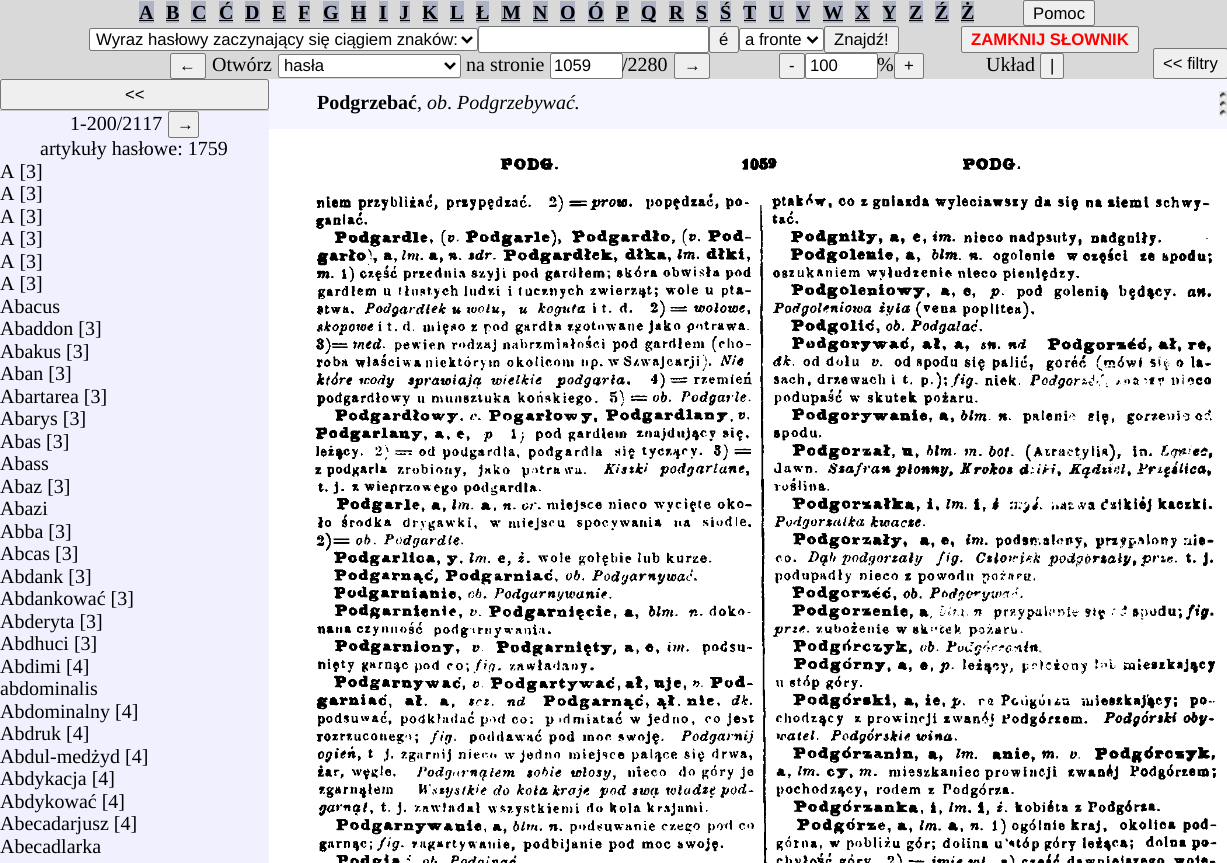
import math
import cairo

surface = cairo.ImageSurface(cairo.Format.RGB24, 1227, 863)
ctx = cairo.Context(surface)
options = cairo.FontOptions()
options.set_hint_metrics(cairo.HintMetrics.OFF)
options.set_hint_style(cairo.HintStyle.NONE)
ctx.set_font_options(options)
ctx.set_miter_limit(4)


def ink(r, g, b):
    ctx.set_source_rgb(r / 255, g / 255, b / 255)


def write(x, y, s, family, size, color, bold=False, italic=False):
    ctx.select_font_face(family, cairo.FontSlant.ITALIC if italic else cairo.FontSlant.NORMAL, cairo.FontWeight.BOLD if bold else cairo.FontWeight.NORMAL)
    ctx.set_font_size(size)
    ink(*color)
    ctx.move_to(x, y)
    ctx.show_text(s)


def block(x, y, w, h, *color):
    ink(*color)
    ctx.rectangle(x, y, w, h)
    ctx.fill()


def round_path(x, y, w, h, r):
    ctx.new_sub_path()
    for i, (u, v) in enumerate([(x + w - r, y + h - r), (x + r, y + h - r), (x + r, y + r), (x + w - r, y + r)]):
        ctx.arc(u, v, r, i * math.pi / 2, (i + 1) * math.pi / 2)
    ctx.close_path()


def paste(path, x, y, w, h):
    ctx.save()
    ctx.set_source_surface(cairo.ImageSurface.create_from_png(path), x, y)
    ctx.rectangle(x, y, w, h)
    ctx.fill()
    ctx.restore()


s1 = dict(family="Liberation Serif", size=20, color=(0, 0, 0), bold=True)
s2 = dict(family="Liberation Sans", size=16.7, color=(0, 0, 0))
s3 = dict(family="Liberation Sans", size=16.7, color=(255, 0, 0), bold=True)
s4 = dict(family="Liberation Serif", size=20, color=(0, 0, 0))
s5 = dict(family="Liberation Serif", size=20, color=(0, 0, 0), italic=True)

ink(255, 255, 255)
ctx.paint()
block(0, 0, 1227, 79, 217, 217, 217)
block(139, 1, 15, 22, 174, 178, 199)
write(139, 19, "A", **s1)
block(139, 20, 15, 1, 0, 0, 0)
block(166, 1, 13, 22, 174, 178, 199)
write(166, 19, "B", **s1)
block(166, 20, 13, 1, 0, 0, 0)
block(191, 1, 15, 22, 174, 178, 199)
write(192, 19, "C", **s1)
block(191, 20, 15, 1, 0, 0, 0)
block(219, 1, 14, 22, 174, 178, 199)
write(219, 19, "Ć", **s1)
block(219, 20, 14, 1, 0, 0, 0)
block(245, 1, 15, 22, 174, 178, 199)
write(245, 19, "D", **s1)
block(245, 20, 15, 1, 0, 0, 0)
block(273, 1, 13, 22, 174, 178, 199)
write(272, 19, "E", **s1)
block(273, 20, 13, 1, 0, 0, 0)
block(299, 1, 11, 22, 174, 178, 199)
write(298, 19, "F", **s1)
block(299, 20, 11, 1, 0, 0, 0)
block(323, 1, 16, 22, 174, 178, 199)
write(323, 19, "G", **s1)
block(323, 20, 16, 1, 0, 0, 0)
block(351, 1, 15, 22, 174, 178, 199)
write(351, 19, "H", **s1)
block(351, 20, 15, 1, 0, 0, 0)
block(379, 1, 9, 22, 174, 178, 199)
write(379, 19, "I", **s1)
block(379, 20, 9, 1, 0, 0, 0)
block(400, 1, 10, 22, 174, 178, 199)
write(399, 19, "J", **s1)
block(400, 20, 10, 1, 0, 0, 0)
block(423, 1, 15, 22, 174, 178, 199)
write(422, 19, "K", **s1)
block(423, 20, 15, 1, 0, 0, 0)
block(450, 1, 14, 22, 174, 178, 199)
write(450, 19, "L", **s1)
block(450, 20, 14, 1, 0, 0, 0)
block(476, 1, 13, 22, 174, 178, 199)
write(476, 19, "Ł", **s1)
block(476, 20, 13, 1, 0, 0, 0)
block(501, 1, 19, 22, 174, 178, 199)
write(502, 19, "M", **s1)
block(501, 20, 19, 1, 0, 0, 0)
block(533, 1, 15, 22, 174, 178, 199)
write(533, 19, "N", **s1)
block(533, 20, 15, 1, 0, 0, 0)
block(560, 1, 15, 22, 174, 178, 199)
write(560, 19, "O", **s1)
block(560, 20, 15, 1, 0, 0, 0)
block(588, 1, 16, 22, 174, 178, 199)
write(588, 19, "Ó", **s1)
block(588, 20, 16, 1, 0, 0, 0)
block(616, 1, 13, 22, 174, 178, 199)
write(616, 19, "P", **s1)
block(616, 20, 13, 1, 0, 0, 0)
block(641, 1, 15, 22, 174, 178, 199)
block(641, 20, 15, 1, 0, 0, 0)
write(641, 19, "Q", **s1)
block(669, 1, 15, 22, 174, 178, 199)
write(669, 19, "R", **s1)
block(669, 20, 15, 1, 0, 0, 0)
block(696, 1, 12, 22, 174, 178, 199)
write(696, 19, "S", **s1)
block(696, 20, 12, 1, 0, 0, 0)
block(720, 1, 11, 22, 174, 178, 199)
write(720, 19, "Ś", **s1)
block(720, 20, 11, 1, 0, 0, 0)
block(744, 1, 12, 22, 174, 178, 199)
write(743, 19, "T", **s1)
block(744, 20, 12, 1, 0, 0, 0)
block(769, 1, 15, 22, 174, 178, 199)
write(769, 19, "U", **s1)
block(769, 20, 15, 1, 0, 0, 0)
block(796, 1, 14, 22, 174, 178, 199)
write(796, 19, "V", **s1)
block(796, 20, 14, 1, 0, 0, 0)
block(823, 1, 20, 22, 174, 178, 199)
write(823, 19, "W", **s1)
block(823, 20, 20, 1, 0, 0, 0)
block(855, 1, 15, 22, 174, 178, 199)
write(855, 19, "X", **s1)
block(855, 20, 15, 1, 0, 0, 0)
block(883, 1, 13, 22, 174, 178, 199)
write(882, 19, "Y", **s1)
block(883, 20, 13, 1, 0, 0, 0)
block(909, 1, 14, 22, 174, 178, 199)
write(909, 19, "Z", **s1)
block(909, 20, 14, 1, 0, 0, 0)
block(935, 1, 14, 22, 174, 178, 199)
write(935, 19, "Ź", **s1)
block(935, 20, 14, 1, 0, 0, 0)
block(961, 1, 13, 22, 174, 178, 199)
write(961, 19, "Ż", **s1)
block(961, 20, 13, 1, 0, 0, 0)
ink(239, 239, 239)
round_path(1023.5, 0.5, 71, 25, 2)
ctx.fill_preserve()
ink(118, 118, 118)
ctx.set_line_width(1)
ctx.stroke()
write(1033, 19, "Pomoc", **s2)
ink(255, 255, 255)
round_path(89.5, 28.5, 388, 22, 2)
ctx.fill_preserve()
ink(118, 118, 118)
ctx.stroke()
ctx.new_path()
ctx.move_to(462, 37)
ctx.line_to(467, 42)
ctx.line_to(472, 37)
ink(0, 0, 0)
ctx.set_line_width(2.5)
ctx.stroke()
write(96, 45, "Wyraz hasłowy zaczynający się ciągiem znaków:", **s2)
ink(255, 255, 255)
round_path(478.5, 26.5, 230, 26, 2)
ctx.fill_preserve()
ink(118, 118, 118)
ctx.set_line_width(1)
ctx.stroke()
ink(239, 239, 239)
round_path(709.5, 26.5, 29, 26, 2)
ctx.fill_preserve()
ink(118, 118, 118)
ctx.stroke()
write(719, 45, "é", **s2)
ink(255, 255, 255)
round_path(739.5, 28.5, 84, 22, 2)
ctx.fill_preserve()
ink(118, 118, 118)
ctx.stroke()
ctx.new_path()
ctx.move_to(807.5, 37)
ctx.line_to(812.5, 42)
ctx.line_to(817.5, 37)
ink(0, 0, 0)
ctx.set_line_width(2.5)
ctx.stroke()
write(745, 45, "a fronte", **s2)
ink(239, 239, 239)
round_path(824.5, 26.5, 74, 26, 2)
ctx.fill_preserve()
ink(118, 118, 118)
ctx.set_line_width(1)
ctx.stroke()
write(834, 45, "Znajdź!", **s2)
ink(239, 239, 239)
round_path(961.5, 26.5, 177, 26, 2)
ctx.fill_preserve()
ink(118, 118, 118)
ctx.stroke()
write(971, 45, "ZAMKNIJ SŁOWNIK", **s3)
ink(239, 239, 239)
round_path(170.5, 53.5, 35, 25, 2)
ctx.fill_preserve()
ink(118, 118, 118)
ctx.stroke()
write(179, 71, "←", **s2)
write(212, 71, "Otwórz", **s4)
ink(255, 255, 255)
round_path(278.5, 54.5, 182, 23, 2)
ctx.fill_preserve()
ink(118, 118, 118)
ctx.stroke()
ctx.new_path()
ctx.move_to(445, 63)
ctx.line_to(450, 68)
ctx.line_to(455, 63)
ink(0, 0, 0)
ctx.set_line_width(2.5)
ctx.stroke()
write(284, 71, "hasła", **s2)
write(466, 71, "na stronie", **s4)
ink(255, 255, 255)
round_path(550.5, 53.5, 72, 25, 2)
ctx.fill_preserve()
ink(118, 118, 118)
ctx.set_line_width(1)
ctx.stroke()
write(554, 71, "1059", **s2)
write(622, 71, "/2280", **s4)
ink(239, 239, 239)
round_path(674.5, 53.5, 35, 25, 2)
ctx.fill_preserve()
ink(118, 118, 118)
ctx.stroke()
write(684, 71, "→", **s2)
ink(239, 239, 239)
round_path(779.5, 53.5, 25, 25, 2)
ctx.fill_preserve()
ink(118, 118, 118)
ctx.stroke()
write(789, 71, "-", **s2)
ink(255, 255, 255)
round_path(805.5, 53.5, 72, 25, 2)
ctx.fill_preserve()
ink(118, 118, 118)
ctx.stroke()
write(810, 71, "100", **s2)
write(877, 71, "%", **s4)
ink(239, 239, 239)
round_path(894.5, 53.5, 29, 25, 2)
ctx.fill_preserve()
ink(118, 118, 118)
ctx.stroke()
write(904, 71, "+", **s2)
write(986, 71, "Układ", **s4)
ink(239, 239, 239)
round_path(1040.5, 53.5, 23, 25, 2)
ctx.fill_preserve()
ink(118, 118, 118)
ctx.stroke()
write(1050, 71, "|", **s2)
ink(239, 239, 239)
round_path(1153.5, 48.5, 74, 30, 2)
ctx.fill_preserve()
ink(118, 118, 118)
ctx.stroke()
write(1163, 69, "<< filtry", **s2)
ink(239, 239, 239)
round_path(0.5, 79.5, 268, 30, 2)
ctx.fill_preserve()
ink(118, 118, 118)
ctx.stroke()
write(125, 100, "<<", **s2)
block(269, 79, 958, 50, 245, 245, 255)
write(317, 109, "Podgrzebać", **s1)
write(417, 109, ",", **s4)
write(427, 109, "ob", **s5)
write(447, 109, ".", **s4)
write(457, 109, "Podgrzebywać.", **s5)
block(1219, 91, 8, 25, 230, 230, 230)
paste("pic1.png", 1220, 92, 7, 25)
paste("pic2.png", 315, 157, 902, 706)
block(0, 111, 269, 752, 240, 240, 255)
block(0, 110, 269, 1, 200, 200, 200)
write(70, 130, "1-200/2117", **s4)
ink(239, 239, 239)
round_path(168.5, 111.5, 30, 26, 2)
ctx.fill_preserve()
ink(118, 118, 118)
ctx.stroke()
write(177, 130, "→", **s2)
write(40, 155, "artykuły hasłowe: 1759", **s4)
write(0, 178, "A [3]", **s4)
write(0, 200, "A [3]", **s4)
write(0, 223, "A [3]", **s4)
write(0, 245, "A [3]", **s4)
write(0, 268, "A [3]", **s4)
write(0, 290, "A [3]", **s4)
write(0, 313, "Abacus", **s4)
write(0, 335, "Abaddon [3]", **s4)
write(0, 358, "Abakus [3]", **s4)
write(0, 380, "Aban [3]", **s4)
write(0, 403, "Abartarea [3]", **s4)
write(0, 425, "Abarys [3]", **s4)
write(0, 448, "Abas [3]", **s4)
write(0, 470, "Abass", **s4)
write(0, 493, "Abaz [3]", **s4)
write(0, 515, "Abazi", **s4)
write(0, 538, "Abba [3]", **s4)
write(0, 560, "Abcas [3]", **s4)
write(0, 583, "Abdank [3]", **s4)
write(0, 605, "Abdankować [3]", **s4)
write(0, 628, "Abderyta [3]", **s4)
write(0, 650, "Abdhuci [3]", **s4)
write(0, 673, "Abdimi [4]", **s4)
write(0, 695, "abdominalis", **s4)
write(0, 718, "Abdominalny [4]", **s4)
write(0, 740, "Abdruk [4]", **s4)
write(0, 763, "Abdul-medżyd [4]", **s4)
write(0, 785, "Abdykacja [4]", **s4)
write(0, 808, "Abdykować [4]", **s4)
write(0, 830, "Abecadarjusz [4]", **s4)
write(0, 853, "Abecadlarka", **s4)
surface.write_to_png("screenshot.png")
